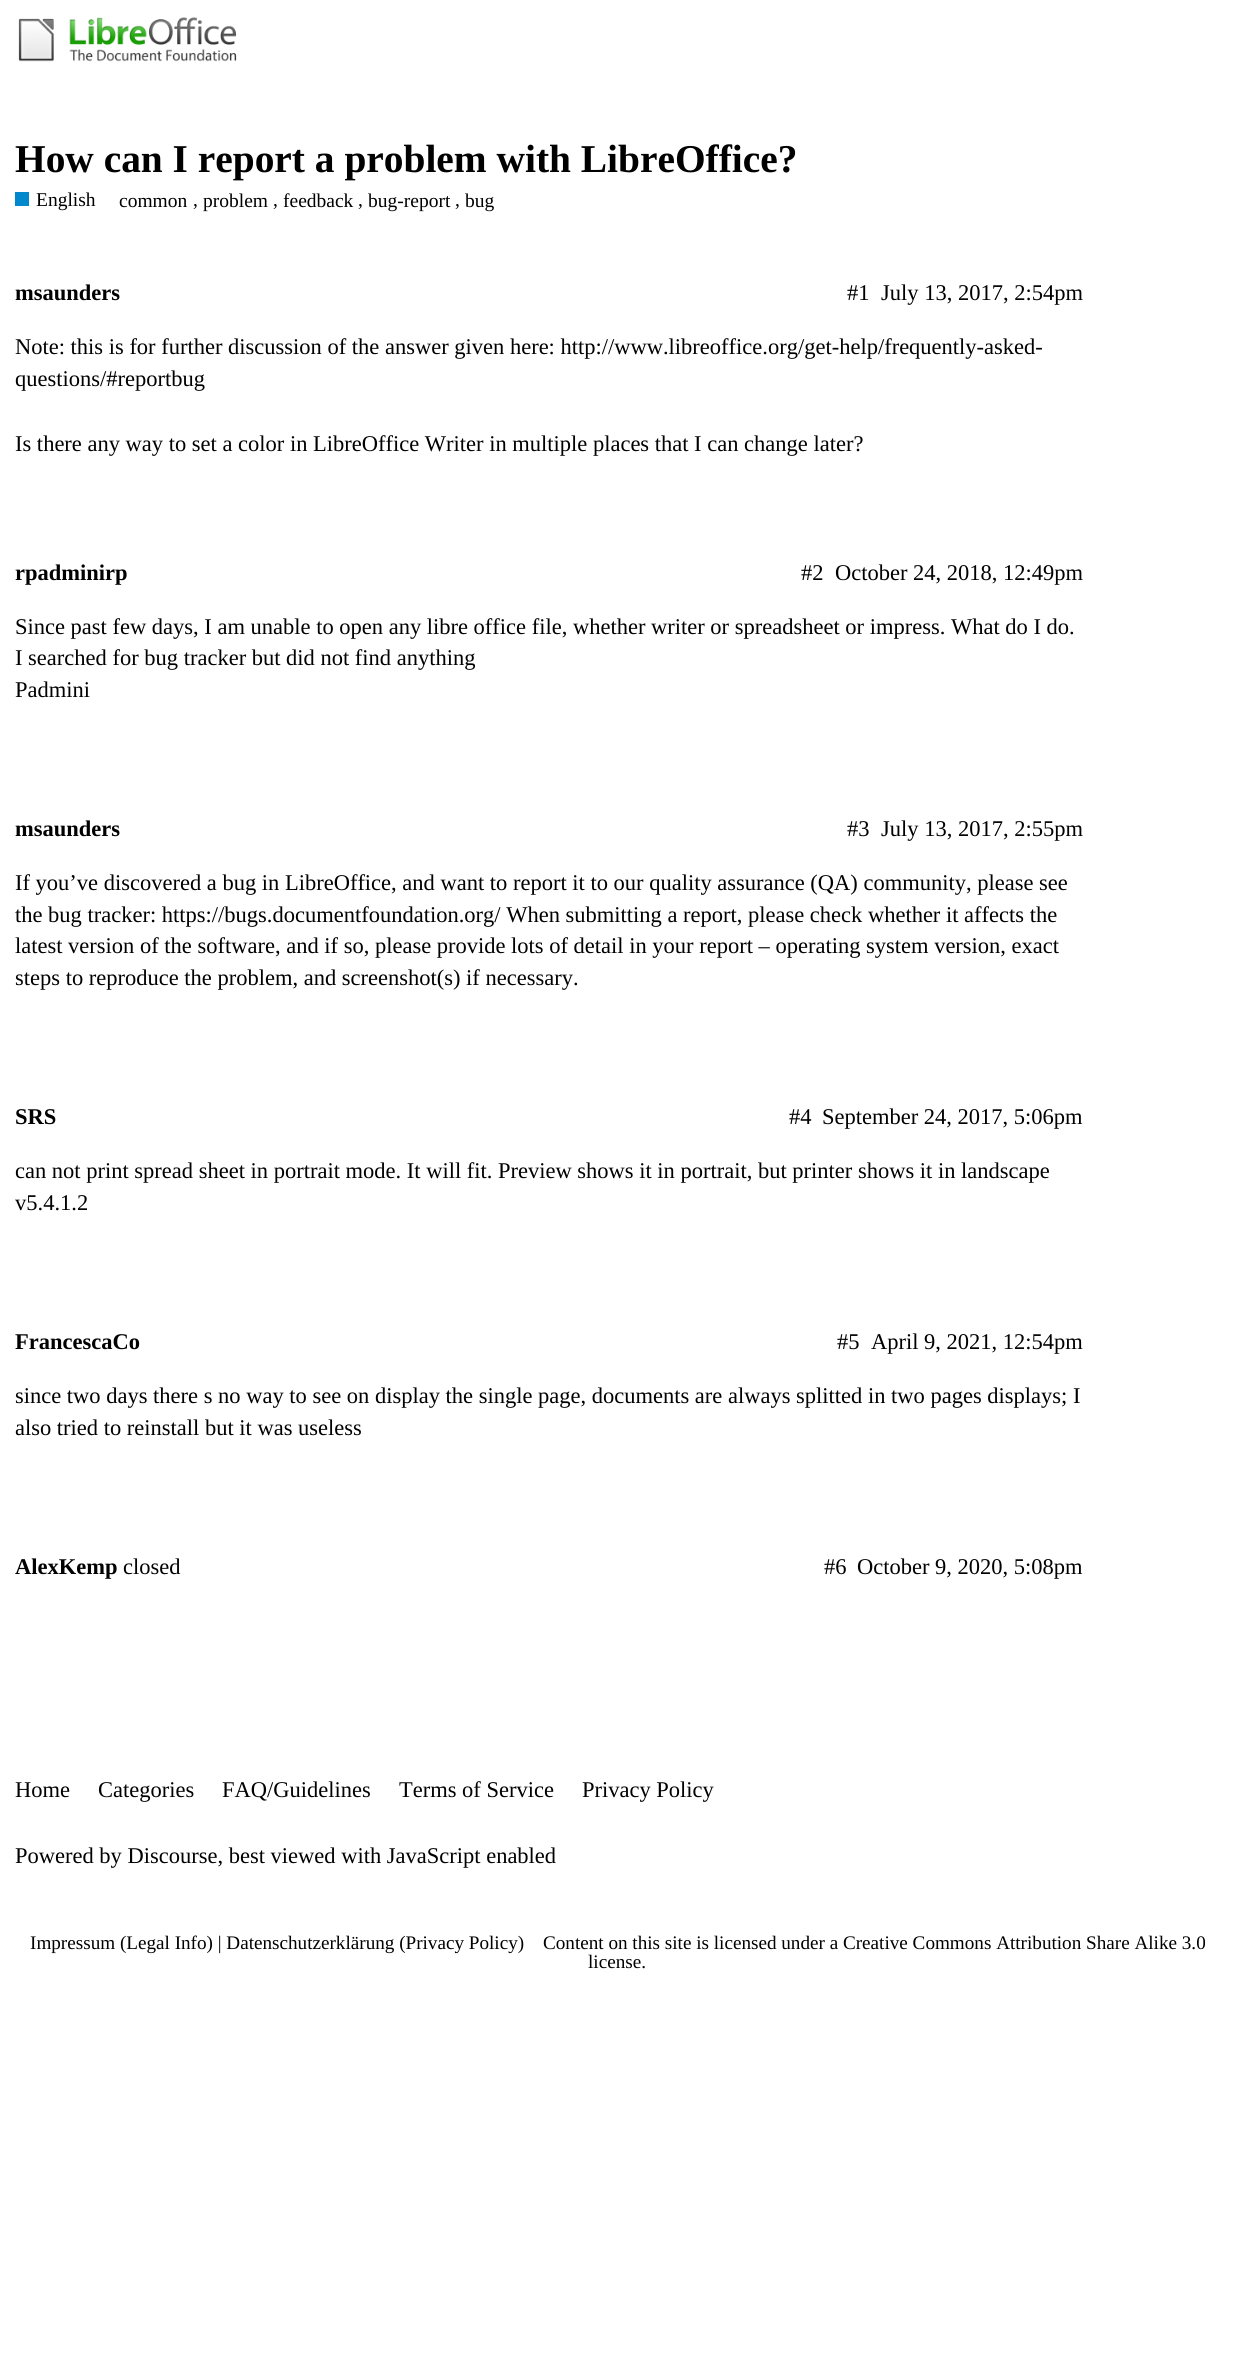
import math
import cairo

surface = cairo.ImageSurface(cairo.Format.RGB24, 1234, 2369)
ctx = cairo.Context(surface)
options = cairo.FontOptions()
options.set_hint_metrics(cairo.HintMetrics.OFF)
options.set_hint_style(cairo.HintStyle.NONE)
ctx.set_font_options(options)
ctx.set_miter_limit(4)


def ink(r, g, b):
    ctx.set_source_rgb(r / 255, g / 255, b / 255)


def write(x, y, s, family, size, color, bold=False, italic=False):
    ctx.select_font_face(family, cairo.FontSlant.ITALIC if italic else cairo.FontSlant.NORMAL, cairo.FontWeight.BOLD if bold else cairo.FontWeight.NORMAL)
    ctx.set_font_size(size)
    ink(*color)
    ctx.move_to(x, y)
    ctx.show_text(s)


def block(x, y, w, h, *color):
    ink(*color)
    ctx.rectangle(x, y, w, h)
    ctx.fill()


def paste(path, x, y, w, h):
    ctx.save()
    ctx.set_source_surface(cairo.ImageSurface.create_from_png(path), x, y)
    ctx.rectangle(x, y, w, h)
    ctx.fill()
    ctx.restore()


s1 = dict(family="Liberation Serif", size=39.4, color=(0, 0, 0), bold=True)
s2 = dict(family="Liberation Serif", size=19.5, color=(0, 0, 0))
s3 = dict(family="Liberation Serif", size=22.5, color=(0, 0, 0), bold=True)
s4 = dict(family="Liberation Serif", size=22.5, color=(0, 0, 0))
s5 = dict(family="Liberation Serif", size=19.15, color=(0, 0, 0))

ink(255, 255, 255)
ctx.paint()
paste("pic1.png", 18, 17, 219, 45)
write(15, 172, "How can I report a problem with LibreOffice?", **s1)
block(15, 192, 14, 14, 0, 136, 204)
write(36, 206, "English", **s2)
write(119, 207, "common", **s2)
write(193, 206, ",", **s2)
write(203, 207, "problem", **s2)
write(273, 206, ",", **s2)
write(283, 207, "feedback", **s2)
write(358, 206, ",", **s2)
write(368, 207, "bug-report", **s2)
write(455, 206, ",", **s2)
write(465, 207, "bug", **s2)
write(15, 300, "msaunders", **s3)
write(847, 300, "#1", **s4)
write(881, 300, "July 13, 2017, 2:54pm", **s4)
write(15, 354, "Note: this is for further discussion of the answer given here: http://www.libreoffice.org/get-help/frequently-asked-", **s4)
write(15, 386, "questions/#reportbug", **s4)
write(15, 451, "Is there any way to set a color in LibreOffice Writer in multiple places that I can change later?", **s4)
write(15, 580, "rpadminirp", **s3)
write(801, 580, "#2", **s4)
write(835, 580, "October 24, 2018, 12:49pm", **s4)
write(15, 634, "Since past few days, I am unable to open any libre office file, whether writer or spreadsheet or impress. What do I do.", **s4)
write(15, 665, "I searched for bug tracker but did not find anything", **s4)
write(15, 697, "Padmini", **s4)
write(15, 836, "msaunders", **s3)
write(847, 836, "#3", **s4)
write(881, 836, "July 13, 2017, 2:55pm", **s4)
write(15, 890, "If you’ve discovered a bug in LibreOffice, and want to report it to our quality assurance (QA) community, please see", **s4)
write(15, 922, "the bug tracker: https://bugs.documentfoundation.org/ When submitting a report, please check whether it affects the", **s4)
write(15, 953, "latest version of the software, and if so, please provide lots of detail in your report – operating system version, exact", **s4)
write(15, 985, "steps to reproduce the problem, and screenshot(s) if necessary.", **s4)
write(15, 1124, "SRS", **s3)
write(789, 1124, "#4", **s4)
write(822, 1124, "September 24, 2017, 5:06pm", **s4)
write(15, 1178, "can not print spread sheet in portrait mode. It will fit. Preview shows it in portrait, but printer shows it in landscape", **s4)
write(15, 1210, "v5.4.1.2", **s4)
write(15, 1349, "FrancescaCo", **s3)
write(837, 1349, "#5", **s4)
write(871, 1349, "April 9, 2021, 12:54pm", **s4)
write(15, 1403, "since two days there s no way to see on display the single page, documents are always splitted in two pages displays; I", **s4)
write(15, 1435, "also tried to reinstall but it was useless", **s4)
write(15, 1574, "AlexKemp", **s3)
write(123, 1574, "closed", **s4)
write(824, 1574, "#6", **s4)
write(857, 1574, "October 9, 2020, 5:08pm", **s4)
write(15, 1797, "Home", **s4)
write(98, 1797, "Categories", **s4)
write(222, 1797, "FAQ/Guidelines", **s4)
write(399, 1797, "Terms of Service", **s4)
write(582, 1797, "Privacy Policy", **s4)
write(15, 1863, "Powered by Discourse, best viewed with JavaScript enabled", **s4)
write(30, 1949, "Impressum (Legal Info) | Datenschutzerklärung (Privacy Policy)", **s5)
write(543, 1949, "Content on this site is licensed under a Creative Commons Attribution Share Alike 3.0", **s5)
write(588, 1968, "license.", **s5)
surface.write_to_png("screenshot.png")
